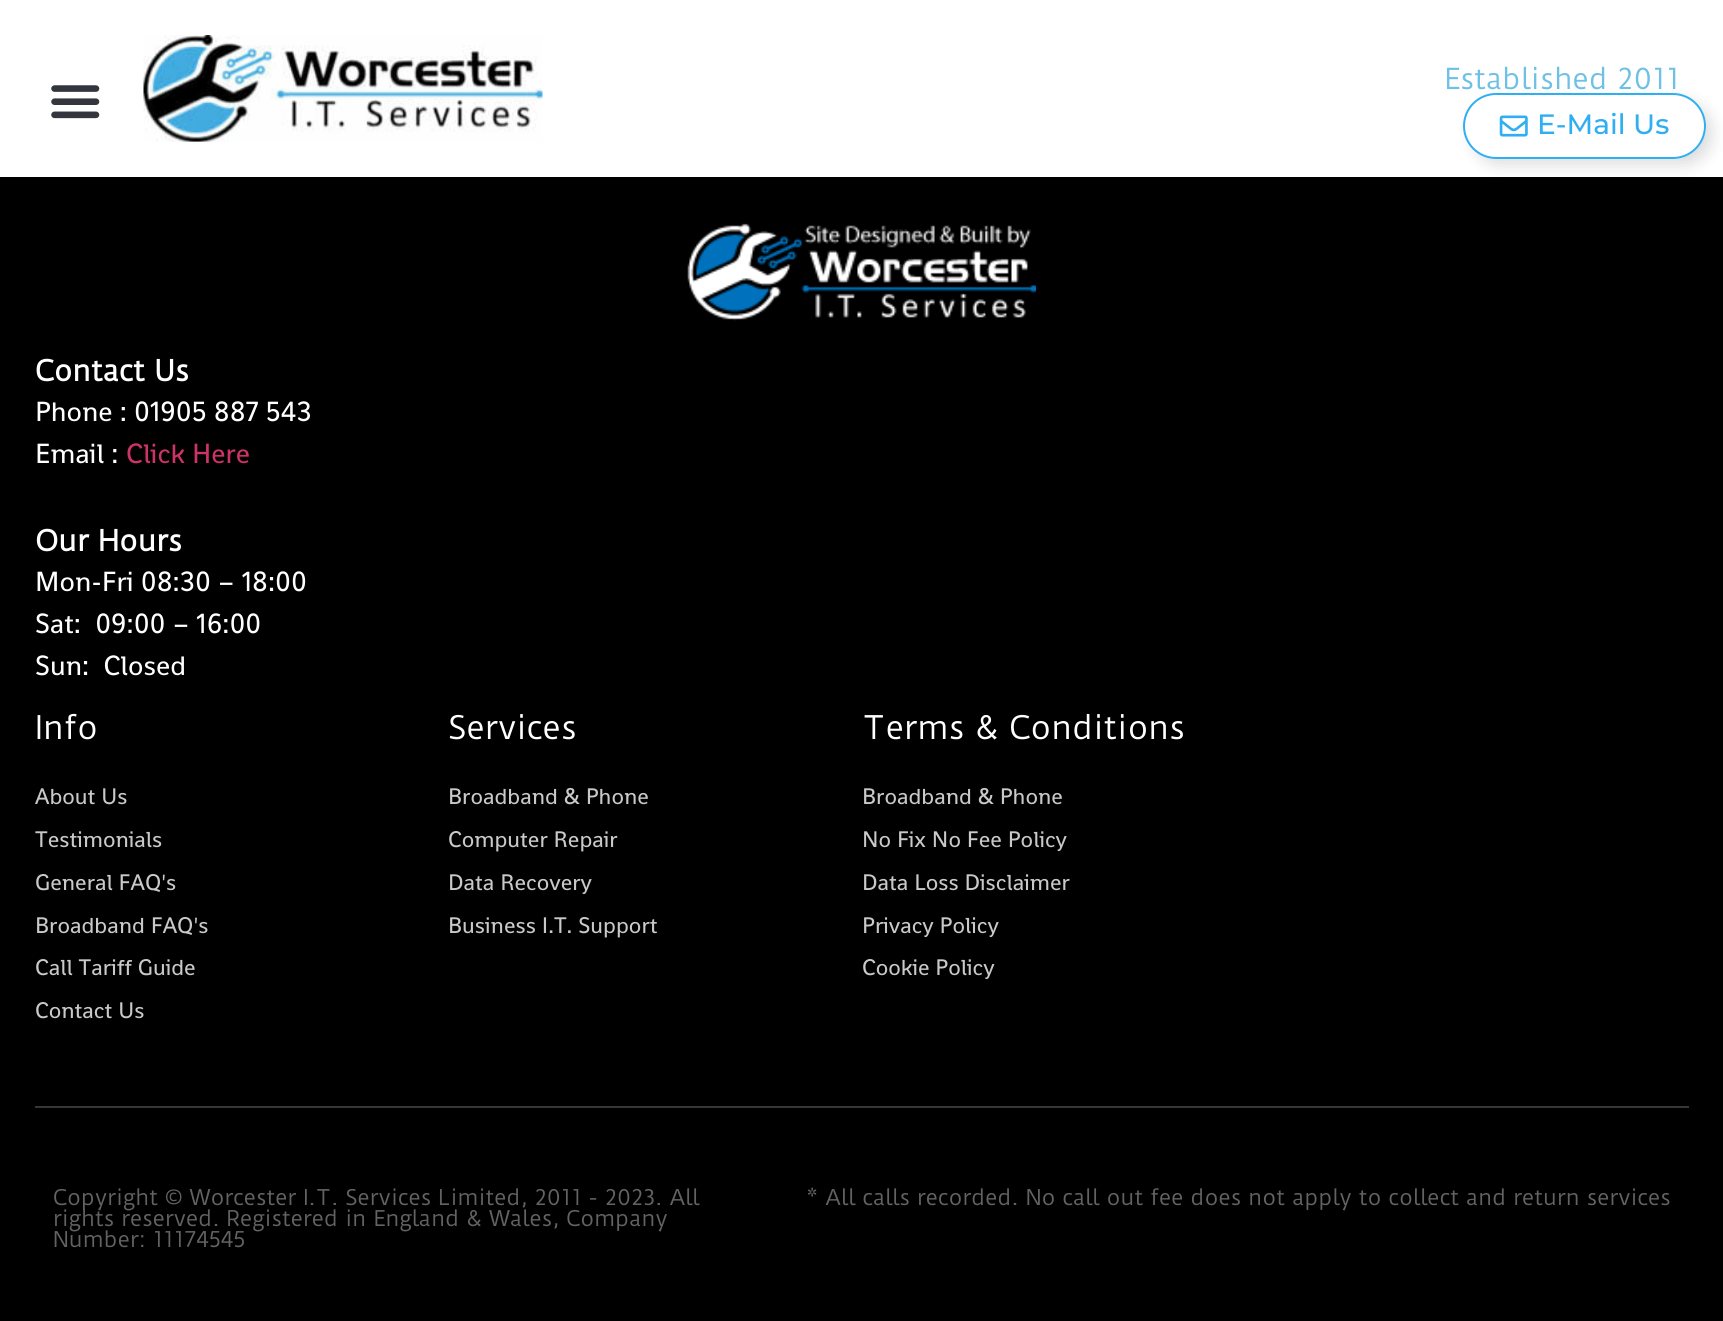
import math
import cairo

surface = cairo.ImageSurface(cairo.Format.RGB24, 1723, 1321)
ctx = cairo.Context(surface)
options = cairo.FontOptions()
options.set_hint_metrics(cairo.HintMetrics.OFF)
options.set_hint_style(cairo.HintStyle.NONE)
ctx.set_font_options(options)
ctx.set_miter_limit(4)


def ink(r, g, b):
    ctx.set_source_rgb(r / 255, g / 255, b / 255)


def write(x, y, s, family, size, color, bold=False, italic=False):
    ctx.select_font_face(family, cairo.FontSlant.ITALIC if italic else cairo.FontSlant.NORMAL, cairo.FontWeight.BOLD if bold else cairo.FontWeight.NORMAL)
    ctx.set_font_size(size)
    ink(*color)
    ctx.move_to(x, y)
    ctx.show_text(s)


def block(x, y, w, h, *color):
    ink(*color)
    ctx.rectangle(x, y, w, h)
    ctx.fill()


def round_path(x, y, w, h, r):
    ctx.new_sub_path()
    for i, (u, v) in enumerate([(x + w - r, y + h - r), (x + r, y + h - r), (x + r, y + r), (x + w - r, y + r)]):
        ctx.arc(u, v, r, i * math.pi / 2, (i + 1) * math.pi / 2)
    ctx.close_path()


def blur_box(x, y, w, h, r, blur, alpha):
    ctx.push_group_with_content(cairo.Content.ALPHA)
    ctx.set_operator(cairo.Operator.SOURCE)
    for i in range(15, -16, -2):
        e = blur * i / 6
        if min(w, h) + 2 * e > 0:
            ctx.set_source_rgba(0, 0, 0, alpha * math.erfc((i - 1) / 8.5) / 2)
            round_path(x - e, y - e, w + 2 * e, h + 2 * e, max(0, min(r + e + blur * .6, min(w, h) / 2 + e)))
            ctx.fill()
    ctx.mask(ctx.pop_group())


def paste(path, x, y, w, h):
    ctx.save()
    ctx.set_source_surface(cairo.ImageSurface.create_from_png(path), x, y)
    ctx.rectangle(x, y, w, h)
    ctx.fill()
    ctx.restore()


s1 = dict(family="Duru Sans", size=28, color=(110, 193, 228))
s2 = dict(family="Montserrat Medium", size=28, color=(47, 174, 241))
s3 = dict(family="Duru Sans", size=28, color=(255, 255, 255), bold=True)
s4 = dict(family="Shanti", size=28, color=(255, 255, 255))
s5 = dict(family="Shanti", size=28, color=(204, 51, 102))
s6 = dict(family="Duru Sans", size=31.5, color=(255, 255, 255))
s7 = dict(family="Shanti", size=22.75, color=(201, 201, 201))
s8 = dict(family="Duru Sans", size=21, color=(99, 99, 99))

ink(0, 0, 0)
ctx.paint()
block(0, 0, 1723, 177, 255, 255, 255)
paste("pic1.png", 51, 85, 49, 34)
paste("pic2.png", 143, 35, 400, 107)
write(1444, 89, "Established 2011", **s1)
ctx.save()
ctx.set_fill_rule(cairo.FillRule.EVEN_ODD)
ctx.new_path()
ctx.move_to(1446, 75)
ctx.line_to(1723, 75)
ctx.line_to(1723, 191)
ctx.line_to(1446, 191)
ctx.close_path()
ctx.move_to(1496, 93)
ctx.line_to(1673, 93)
ctx.curve_to(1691, 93, 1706, 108, 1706, 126)
ctx.curve_to(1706, 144, 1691, 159, 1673, 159)
ctx.line_to(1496, 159)
ctx.curve_to(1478, 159, 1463, 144, 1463, 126)
ctx.curve_to(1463, 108, 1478, 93, 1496, 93)
ctx.close_path()
ctx.clip()
ink(0, 0, 0)
blur_box(1474, 103, 236, 60, 30, 9, 0.16)
ctx.restore()
round_path(1464, 94, 241, 64, 32)
ink(47, 174, 241)
ctx.stroke()
paste("pic3.png", 1499, 115, 29, 22)
write(1537, 134, "E-Mail Us", **s2)
paste("pic4.png", 687, 223, 349, 98)
write(35, 381, "Contact Us", **s3)
write(35, 421, "Phone : 01905 887 543", **s4)
write(35, 463, "Email :", **s4)
write(126, 463, "Click Here", **s5)
write(35, 551, "Our Hours", **s3)
write(35, 591, "Mon-Fri 08:30 – 18:00", **s4)
write(35, 633, "Sat:  09:00 – 16:00", **s4)
write(35, 675, "Sun:  Closed", **s4)
write(35, 739, "Info", **s6)
write(35, 804, "About Us", **s7)
write(35, 847, "Testimonials", **s7)
write(35, 890, "General FAQ's", **s7)
write(35, 933, "Broadband FAQ's", **s7)
write(35, 975, "Call Tariff Guide", **s7)
write(35, 1018, "Contact Us", **s7)
write(448, 739, "Services", **s6)
write(448, 804, "Broadband & Phone", **s7)
write(448, 847, "Computer Repair", **s7)
write(448, 890, "Data Recovery", **s7)
write(448, 933, "Business I.T. Support", **s7)
write(862, 739, "Terms & Conditions", **s6)
write(862, 804, "Broadband & Phone", **s7)
write(862, 847, "No Fix No Fee Policy", **s7)
write(862, 890, "Data Loss Disclaimer", **s7)
write(862, 933, "Privacy Policy", **s7)
write(862, 975, "Cookie Policy", **s7)
block(35, 1106, 1654, 2, 54, 54, 54)
write(53, 1205, "Copyright © Worcester I.T. Services Limited, 2011 - 2023. All", **s8)
write(53, 1226, "rights reserved.", **s8)
write(226, 1226, "Registered in England & Wales, Company", **s8)
write(53, 1247, "Number: 11174545", **s8)
write(806, 1205, "* All calls recorded. No call out fee does not apply to collect and return services", **s8)
surface.write_to_png("screenshot.png")
